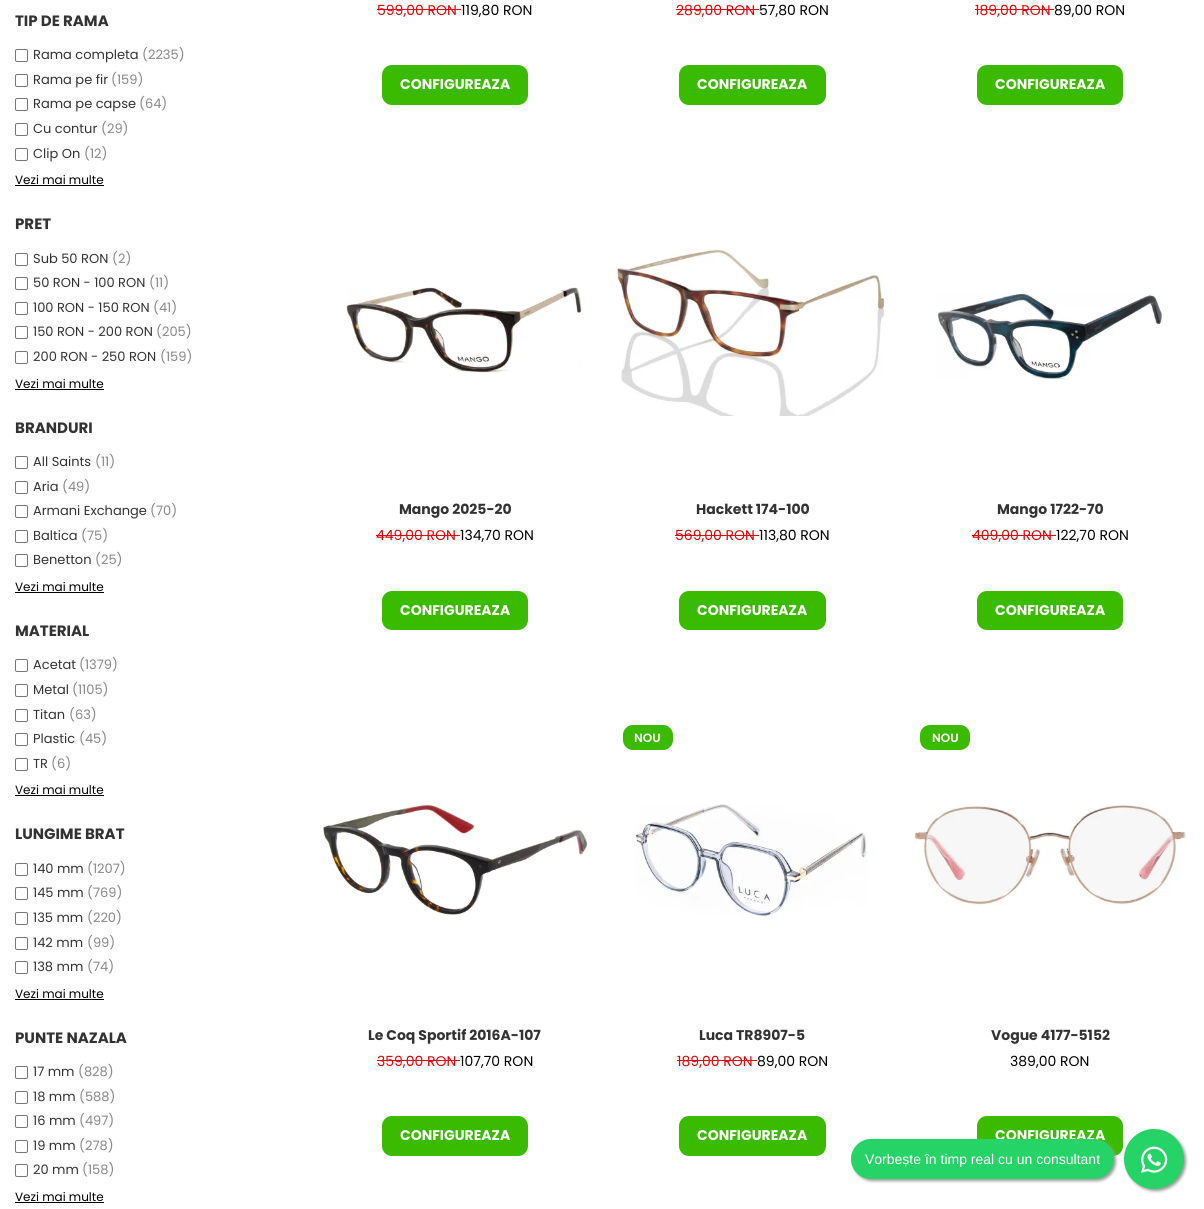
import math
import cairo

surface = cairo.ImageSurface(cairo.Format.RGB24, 1204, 1209)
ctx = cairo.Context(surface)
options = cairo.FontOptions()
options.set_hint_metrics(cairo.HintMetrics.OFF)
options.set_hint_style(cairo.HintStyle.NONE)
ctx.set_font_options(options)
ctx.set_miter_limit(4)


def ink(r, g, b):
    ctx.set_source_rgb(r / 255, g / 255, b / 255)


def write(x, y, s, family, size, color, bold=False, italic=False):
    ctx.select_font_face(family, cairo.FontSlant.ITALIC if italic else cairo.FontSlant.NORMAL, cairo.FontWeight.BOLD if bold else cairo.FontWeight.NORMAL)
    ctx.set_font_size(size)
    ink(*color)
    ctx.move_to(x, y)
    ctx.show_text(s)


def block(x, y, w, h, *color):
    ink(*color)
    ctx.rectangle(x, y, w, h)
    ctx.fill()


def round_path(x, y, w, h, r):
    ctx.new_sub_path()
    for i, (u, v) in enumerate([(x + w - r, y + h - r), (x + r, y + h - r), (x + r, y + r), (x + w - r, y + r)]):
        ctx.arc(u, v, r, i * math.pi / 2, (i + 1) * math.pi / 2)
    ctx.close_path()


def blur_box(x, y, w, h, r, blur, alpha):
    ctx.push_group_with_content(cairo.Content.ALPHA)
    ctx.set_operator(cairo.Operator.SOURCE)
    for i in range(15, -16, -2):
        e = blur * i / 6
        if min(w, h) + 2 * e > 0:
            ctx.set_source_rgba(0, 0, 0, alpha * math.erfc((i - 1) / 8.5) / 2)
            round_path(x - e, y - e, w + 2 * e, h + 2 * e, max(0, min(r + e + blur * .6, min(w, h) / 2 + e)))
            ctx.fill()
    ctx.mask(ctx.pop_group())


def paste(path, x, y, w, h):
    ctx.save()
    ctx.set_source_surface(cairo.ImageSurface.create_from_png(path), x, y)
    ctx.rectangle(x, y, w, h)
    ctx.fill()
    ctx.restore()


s1 = dict(family="Poppins", size=15, color=(51, 51, 51), bold=True)
s2 = dict(family="Poppins", size=13, color=(51, 51, 51))
s3 = dict(family="Poppins", size=13, color=(136, 136, 136))
s4 = dict(family="Poppins", size=12, color=(0, 0, 0))
s5 = dict(family="Poppins", size=14, color=(234, 0, 0))
s6 = dict(family="Poppins", size=14, color=(0, 0, 0))
s7 = dict(family="Poppins", size=14, color=(255, 255, 255), bold=True)
s8 = dict(family="Poppins", size=14, color=(51, 51, 51), bold=True)
s9 = dict(family="Poppins SemiBold", size=12, color=(255, 255, 255))
s10 = dict(family="Liberation Sans", size=14, color=(255, 255, 255))

ink(255, 255, 255)
ctx.paint()
write(15, 26, "TIP DE RAMA", **s1)
round_path(15.5, 49.5, 12, 12, 1.5)
ink(118, 118, 118)
ctx.set_line_width(1)
ctx.stroke()
write(33, 59, "Rama completa", **s2)
write(142, 59, "(2235)", **s3)
round_path(15.5, 74.5, 12, 12, 1.5)
ink(118, 118, 118)
ctx.stroke()
write(33, 84, "Rama pe fir", **s2)
write(111, 84, "(159)", **s3)
round_path(15.5, 98.5, 12, 12, 1.5)
ink(118, 118, 118)
ctx.stroke()
write(33, 108, "Rama pe capse", **s2)
write(139, 108, "(64)", **s3)
round_path(15.5, 123.5, 12, 12, 1.5)
ink(118, 118, 118)
ctx.stroke()
write(33, 133, "Cu contur", **s2)
write(101, 133, "(29)", **s3)
round_path(15.5, 148.5, 12, 12, 1.5)
ink(118, 118, 118)
ctx.stroke()
write(33, 158, "Clip On", **s2)
write(84, 158, "(12)", **s3)
write(15, 184, "Vezi mai multe", **s4)
block(15, 185, 89, 1, 0, 0, 0)
write(15, 229, "PRET", **s1)
round_path(15.5, 253.5, 12, 12, 1.5)
ink(118, 118, 118)
ctx.stroke()
write(33, 263, "Sub 50 RON", **s2)
write(112, 263, "(2)", **s3)
round_path(15.5, 277.5, 12, 12, 1.5)
ink(118, 118, 118)
ctx.stroke()
write(33, 287, "50 RON - 100 RON", **s2)
write(149, 287, "(11)", **s3)
round_path(15.5, 302.5, 12, 12, 1.5)
ink(118, 118, 118)
ctx.stroke()
write(33, 312, "100 RON - 150 RON", **s2)
write(153, 312, "(41)", **s3)
round_path(15.5, 326.5, 12, 12, 1.5)
ink(118, 118, 118)
ctx.stroke()
write(33, 336, "150 RON - 200 RON", **s2)
write(156, 336, "(205)", **s3)
round_path(15.5, 351.5, 12, 12, 1.5)
ink(118, 118, 118)
ctx.stroke()
write(33, 361, "200 RON - 250 RON", **s2)
write(160, 361, "(159)", **s3)
write(15, 388, "Vezi mai multe", **s4)
block(15, 389, 89, 1, 0, 0, 0)
write(15, 433, "BRANDURI", **s1)
round_path(15.5, 456.5, 12, 12, 1.5)
ink(118, 118, 118)
ctx.stroke()
write(33, 466, "All Saints", **s2)
write(95, 466, "(11)", **s3)
round_path(15.5, 481.5, 12, 12, 1.5)
ink(118, 118, 118)
ctx.stroke()
write(33, 491, "Aria", **s2)
write(62, 491, "(49)", **s3)
round_path(15.5, 505.5, 12, 12, 1.5)
ink(118, 118, 118)
ctx.stroke()
write(33, 515, "Armani Exchange", **s2)
write(150, 515, "(70)", **s3)
round_path(15.5, 530.5, 12, 12, 1.5)
ink(118, 118, 118)
ctx.stroke()
write(33, 540, "Baltica", **s2)
write(81, 540, "(75)", **s3)
round_path(15.5, 554.5, 12, 12, 1.5)
ink(118, 118, 118)
ctx.stroke()
write(33, 564, "Benetton", **s2)
write(95, 564, "(25)", **s3)
write(15, 591, "Vezi mai multe", **s4)
block(15, 592, 89, 1, 0, 0, 0)
write(15, 636, "MATERIAL", **s1)
round_path(15.5, 659.5, 12, 12, 1.5)
ink(118, 118, 118)
ctx.stroke()
write(33, 669, "Acetat", **s2)
write(79, 669, "(1379)", **s3)
round_path(15.5, 684.5, 12, 12, 1.5)
ink(118, 118, 118)
ctx.stroke()
write(33, 694, "Metal", **s2)
write(72, 694, "(1105)", **s3)
round_path(15.5, 709.5, 12, 12, 1.5)
ink(118, 118, 118)
ctx.stroke()
write(33, 719, "Titan", **s2)
write(69, 719, "(63)", **s3)
round_path(15.5, 733.5, 12, 12, 1.5)
ink(118, 118, 118)
ctx.stroke()
write(33, 743, "Plastic", **s2)
write(79, 743, "(45)", **s3)
round_path(15.5, 758.5, 12, 12, 1.5)
ink(118, 118, 118)
ctx.stroke()
write(33, 768, "TR", **s2)
write(51, 768, "(6)", **s3)
write(15, 794, "Vezi mai multe", **s4)
block(15, 795, 89, 1, 0, 0, 0)
write(15, 839, "LUNGIME BRAT", **s1)
round_path(15.5, 863.5, 12, 12, 1.5)
ink(118, 118, 118)
ctx.stroke()
write(33, 873, "140 mm", **s2)
write(87, 873, "(1207)", **s3)
round_path(15.5, 887.5, 12, 12, 1.5)
ink(118, 118, 118)
ctx.stroke()
write(33, 897, "145 mm", **s2)
write(87, 897, "(769)", **s3)
round_path(15.5, 912.5, 12, 12, 1.5)
ink(118, 118, 118)
ctx.stroke()
write(33, 922, "135 mm", **s2)
write(87, 922, "(220)", **s3)
round_path(15.5, 937.5, 12, 12, 1.5)
ink(118, 118, 118)
ctx.stroke()
write(33, 947, "142 mm", **s2)
write(87, 947, "(99)", **s3)
round_path(15.5, 961.5, 12, 12, 1.5)
ink(118, 118, 118)
ctx.stroke()
write(33, 971, "138 mm", **s2)
write(87, 971, "(74)", **s3)
write(15, 998, "Vezi mai multe", **s4)
block(15, 999, 89, 1, 0, 0, 0)
write(15, 1043, "PUNTE NAZALA", **s1)
round_path(15.5, 1066.5, 12, 12, 1.5)
ink(118, 118, 118)
ctx.stroke()
write(33, 1076, "17 mm", **s2)
write(78, 1076, "(828)", **s3)
round_path(15.5, 1091.5, 12, 12, 1.5)
ink(118, 118, 118)
ctx.stroke()
write(33, 1101, "18 mm", **s2)
write(79, 1101, "(588)", **s3)
round_path(15.5, 1115.5, 12, 12, 1.5)
ink(118, 118, 118)
ctx.stroke()
write(33, 1125, "16 mm", **s2)
write(79, 1125, "(497)", **s3)
round_path(15.5, 1140.5, 12, 12, 1.5)
ink(118, 118, 118)
ctx.stroke()
write(33, 1150, "19 mm", **s2)
write(79, 1150, "(278)", **s3)
round_path(15.5, 1164.5, 12, 12, 1.5)
ink(118, 118, 118)
ctx.stroke()
write(33, 1174, "20 mm", **s2)
write(82, 1174, "(158)", **s3)
write(15, 1201, "Vezi mai multe", **s4)
block(15, 1202, 89, 1, 0, 0, 0)
write(377, 15, "599,00 RON", **s5)
block(377, 9, 84, 1, 234, 0, 0)
write(461, 15, "119,80 RON", **s6)
ink(58, 187, 0)
round_path(382, 65, 146, 40, 10)
ctx.fill()
write(400, 89, "CONFIGUREAZA", **s7)
write(676, 15, "289,00 RON", **s5)
block(676, 9, 83, 1, 234, 0, 0)
write(759, 15, "57,80 RON", **s6)
ink(58, 187, 0)
round_path(679, 65, 147, 40, 10)
ctx.fill()
write(697, 89, "CONFIGUREAZA", **s7)
write(975, 15, "189,00 RON", **s5)
block(975, 9, 79, 1, 234, 0, 0)
write(1054, 15, "89,00 RON", **s6)
ink(58, 187, 0)
round_path(977, 65, 146, 40, 10)
ctx.fill()
write(995, 89, "CONFIGUREAZA", **s7)
paste("pic1.png", 346, 287, 236, 86)
write(399, 514, "Mango 2025-20", **s8)
write(376, 540, "449,00 RON", **s5)
block(376, 535, 84, 1, 234, 0, 0)
write(460, 540, "134,70 RON", **s6)
ink(58, 187, 0)
round_path(382, 591, 146, 39, 10)
ctx.fill()
write(400, 615, "CONFIGUREAZA", **s7)
paste("pic2.png", 616, 249, 270, 167)
write(696, 514, "Hackett 174-100", **s8)
write(675, 540, "569,00 RON", **s5)
block(675, 535, 84, 1, 234, 0, 0)
write(759, 540, "113,80 RON", **s6)
ink(58, 187, 0)
round_path(679, 591, 147, 39, 10)
ctx.fill()
write(697, 615, "CONFIGUREAZA", **s7)
paste("pic3.png", 936, 293, 227, 87)
write(997, 514, "Mango 1722-70", **s8)
write(972, 540, "409,00 RON", **s5)
block(972, 535, 84, 1, 234, 0, 0)
write(1056, 540, "122,70 RON", **s6)
ink(58, 187, 0)
round_path(977, 591, 146, 39, 10)
ctx.fill()
write(995, 615, "CONFIGUREAZA", **s7)
paste("pic4.png", 323, 804, 265, 111)
write(368, 1040, "Le Coq Sportif 2016A-107", **s8)
write(377, 1066, "359,00 RON", **s5)
block(377, 1060, 83, 1, 234, 0, 0)
write(460, 1066, "107,70 RON", **s6)
ink(58, 187, 0)
round_path(382, 1116, 146, 40, 10)
ctx.fill()
write(400, 1140, "CONFIGUREAZA", **s7)
ink(58, 187, 0)
round_path(623, 725, 50, 25, 10)
ctx.fill()
write(634, 742, "NOU", **s9)
paste("pic5.png", 635, 803, 233, 115)
write(699, 1040, "Luca TR8907-5", **s8)
write(677, 1066, "189,00 RON", **s5)
block(677, 1060, 80, 1, 234, 0, 0)
write(757, 1066, "89,00 RON", **s6)
ink(58, 187, 0)
round_path(679, 1116, 147, 40, 10)
ctx.fill()
write(697, 1140, "CONFIGUREAZA", **s7)
ink(58, 187, 0)
round_path(920, 725, 50, 25, 10)
ctx.fill()
write(932, 742, "NOU", **s9)
paste("pic6.png", 914, 804, 273, 102)
write(991, 1040, "Vogue 4177-5152", **s8)
write(1010, 1066, "389,00 RON", **s6)
ink(58, 187, 0)
round_path(977, 1116, 146, 40, 10)
ctx.fill()
write(995, 1140, "CONFIGUREAZA", **s7)
ink(153, 153, 153)
blur_box(853, 1141, 263, 40, 20, 1.5, 1)
ink(37, 211, 102)
round_path(851, 1139, 263, 40, 20)
ctx.fill()
write(865, 1164, "Vorbește în timp real cu un consultant", **s10)
ink(153, 153, 153)
blur_box(1126, 1131, 60, 60, 30, 1.5, 1)
ink(37, 211, 102)
ctx.arc(1154, 1159, 30, 0, 2 * math.pi)
ctx.fill()
paste("pic7.png", 1141, 1146, 27, 27)
surface.write_to_png("screenshot.png")
